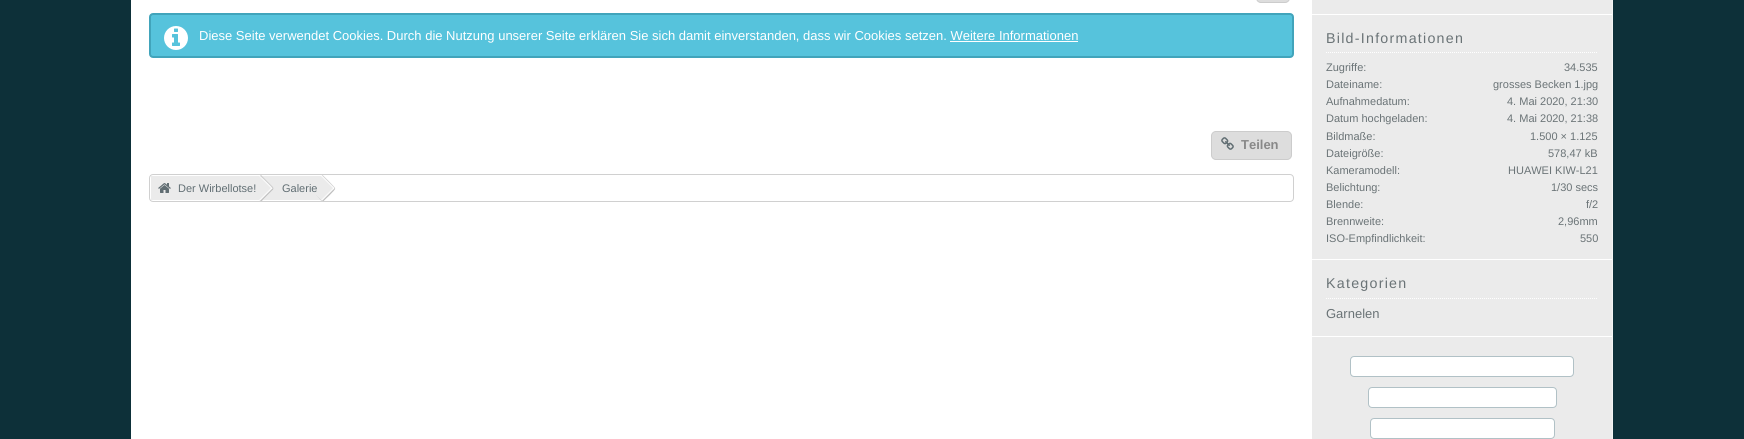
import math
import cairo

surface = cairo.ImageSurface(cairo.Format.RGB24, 1744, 439)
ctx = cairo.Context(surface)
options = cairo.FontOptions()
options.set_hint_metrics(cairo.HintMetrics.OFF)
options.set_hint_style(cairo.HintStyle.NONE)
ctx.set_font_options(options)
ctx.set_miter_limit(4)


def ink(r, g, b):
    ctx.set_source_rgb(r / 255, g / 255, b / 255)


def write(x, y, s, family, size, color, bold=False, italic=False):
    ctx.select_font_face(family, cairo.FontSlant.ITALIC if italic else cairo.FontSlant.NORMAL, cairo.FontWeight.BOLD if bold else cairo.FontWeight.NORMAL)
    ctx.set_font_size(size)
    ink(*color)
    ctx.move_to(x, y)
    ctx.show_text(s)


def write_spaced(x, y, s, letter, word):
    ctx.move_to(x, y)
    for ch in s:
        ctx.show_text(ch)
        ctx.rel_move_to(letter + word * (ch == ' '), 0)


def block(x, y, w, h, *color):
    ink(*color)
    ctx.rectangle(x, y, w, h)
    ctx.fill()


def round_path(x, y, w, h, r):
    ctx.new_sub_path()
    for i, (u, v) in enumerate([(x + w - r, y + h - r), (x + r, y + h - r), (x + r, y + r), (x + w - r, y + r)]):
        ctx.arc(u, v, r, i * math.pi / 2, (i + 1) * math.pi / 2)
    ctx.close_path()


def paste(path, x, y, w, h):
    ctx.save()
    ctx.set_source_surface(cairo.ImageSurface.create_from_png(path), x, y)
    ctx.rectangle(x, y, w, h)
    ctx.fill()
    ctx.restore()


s1 = dict(family="Liberation Sans", size=13, color=(255, 255, 255))
s2 = dict(family="Liberation Sans", size=13, color=(136, 136, 136), bold=True)
s3 = dict(family="Liberation Sans", size=11, color=(97, 110, 115))
s4 = dict(family="Liberation Sans", size=11, color=(106, 115, 118))
s5 = dict(family="Liberation Sans", size=13, color=(106, 115, 118))

ink(13, 48, 57)
ctx.paint()
block(1612, 0, 1, 439, 244, 244, 244)
block(131, 0, 1181, 439, 255, 255, 255)
ink(221, 221, 221)
round_path(1256.5, -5.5, 33, 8, 4.5)
ctx.fill_preserve()
ink(204, 204, 204)
ctx.set_line_width(1)
ctx.stroke()
ink(86, 195, 220)
round_path(150, 14, 1143, 43, 3)
ctx.fill_preserve()
ink(65, 164, 187)
ctx.set_line_width(2)
ctx.stroke()
paste("pic1.png", 164, 26, 24, 24)
write(199, 40, "Diese Seite verwendet Cookies. Durch die Nutzung unserer Seite erklären Sie sich damit einverstanden, dass wir Cookies setzen. Weitere Informationen", **s1)
block(950, 41, 128, 1, 255, 255, 255)
ink(221, 221, 221)
round_path(1211.5, 131.5, 80, 28, 4.5)
ctx.fill_preserve()
ink(204, 204, 204)
ctx.set_line_width(1)
ctx.stroke()
paste("pic2.png", 1221, 137, 13, 13)
write(1241, 149, "Teilen", **s2)
round_path(149.5, 174.5, 1144, 27, 3.5)
ink(208, 208, 208)
ctx.stroke()
block(151, 176, 109, 24, 235, 235, 235)
paste("pic3.png", 158, 183, 13, 10)
block(262, 176, 62, 24, 235, 235, 235)
ctx.new_path()
ctx.move_to(261, 175)
ctx.line_to(273, 187)
ctx.curve_to(273.5, 188, 273.5, 189, 273, 190)
ctx.line_to(262, 201)
ctx.line_to(260, 201)
ctx.line_to(247.5, 188.5)
ctx.close_path()
ctx.fill()
write(178, 192, "Der Wirbellotse!", **s3)
ctx.set_source_rgba(1, 1, 1, 0.7)
ctx.new_path()
ctx.move_to(260, 175.5)
ctx.line_to(272, 187.5)
ctx.curve_to(272.5, 188, 272.5, 188.5, 272, 189)
ctx.line_to(260, 201)
ctx.line_to(259, 200)
ctx.line_to(271, 188)
ctx.curve_to(272, 188, 272, 187, 271, 187)
ctx.line_to(260, 176)
ctx.close_path()
ctx.fill()
ink(255, 255, 255)
ctx.set_fill_rule(cairo.FillRule.EVEN_ODD)
ctx.new_path()
ctx.move_to(249, 187)
ctx.line_to(247.5, 188.5)
ctx.close_path()
ctx.move_to(260, 175.5)
ctx.line_to(272, 187.5)
ctx.curve_to(272.5, 188, 272.5, 188.5, 272, 189)
ctx.line_to(260, 201)
ctx.line_to(269, 192)
ctx.curve_to(272.5, 188.5, 272.5, 189.5, 269, 186)
ctx.line_to(259.5, 176.5)
ctx.close_path()
ctx.fill()
ink(208, 208, 208)
ctx.new_path()
ctx.move_to(254, 182)
ctx.line_to(260, 175.5)
ctx.close_path()
ctx.move_to(272.5, 188.5)
ctx.curve_to(272.5, 187.5, 262, 177.5, 260, 176)
ctx.line_to(261, 175)
ctx.line_to(273, 187)
ctx.line_to(273.5, 188.5)
ctx.close_path()
ctx.fill()
ink(190, 190, 190)
ctx.set_fill_rule(cairo.FillRule.WINDING)
ctx.new_path()
ctx.move_to(260, 201)
ctx.line_to(272.5, 188.5)
ctx.line_to(273.5, 188.5)
ctx.line_to(273, 189.5)
ctx.line_to(261.5, 201)
ctx.close_path()
ctx.fill()
ink(235, 235, 235)
ctx.new_path()
ctx.move_to(322.5, 175)
ctx.line_to(334.5, 187)
ctx.curve_to(335.5, 188, 335.5, 189, 334.5, 190)
ctx.line_to(323.5, 201)
ctx.line_to(321.5, 201)
ctx.line_to(309, 188.5)
ctx.close_path()
ctx.fill()
ctx.set_source_rgba(1, 1, 1, 0.7)
ctx.new_path()
ctx.move_to(322, 175.5)
ctx.line_to(334, 187.5)
ctx.curve_to(334, 188, 334, 188.5, 334, 189)
ctx.line_to(322, 201)
ctx.line_to(317, 196)
ctx.line_to(321, 200)
ctx.line_to(333, 188)
ctx.line_to(333, 187)
ctx.line_to(321.5, 175.5)
ctx.close_path()
ctx.fill()
ink(255, 255, 255)
ctx.new_path()
ctx.move_to(322, 175.5)
ctx.line_to(334, 187.5)
ctx.curve_to(334, 188, 334, 188.5, 334, 189)
ctx.line_to(333, 190)
ctx.line_to(333, 188)
ctx.line_to(321, 176)
ctx.close_path()
ctx.fill()
ink(208, 208, 208)
ctx.new_path()
ctx.move_to(322, 175.5)
ctx.line_to(322.5, 175)
ctx.curve_to(324.5, 177, 335, 187, 335, 188.5)
ctx.line_to(334, 188.5)
ctx.line_to(334, 187.5)
ctx.close_path()
ctx.fill()
ink(190, 190, 190)
ctx.set_fill_rule(cairo.FillRule.EVEN_ODD)
ctx.new_path()
ctx.move_to(321.5, 201)
ctx.line_to(316, 195)
ctx.line_to(322, 201)
ctx.close_path()
ctx.move_to(323.5, 201)
ctx.line_to(322, 201)
ctx.line_to(334, 189)
ctx.line_to(334, 188.5)
ctx.line_to(335, 188.5)
ctx.curve_to(335.5, 190, 325, 199.5, 323.5, 201)
ctx.close_path()
ctx.fill()
write(282, 192, "Galerie", **s3)
block(1312, 0, 300, 439, 235, 235, 235)
block(1312, 14, 300, 1, 255, 255, 255)
block(1312, 259, 300, 1, 255, 255, 255)
ctx.new_path()
ctx.move_to(1326, 52.5)
ctx.line_to(1598, 52.5)
ctx.set_dash([1, 1])
ctx.stroke()
ctx.set_font_size(14.25)
ink(106, 115, 118)
write_spaced(1326, 43, "Bild-Informationen", 1.25, 0)
write(1326, 71, "Zugriffe:", **s4)
write(1564, 71, "34.535", **s4)
write(1326, 88, "Dateiname:", **s4)
write(1493, 88, "grosses Becken 1.jpg", **s4)
write(1326, 105, "Aufnahmedatum:", **s4)
write(1507, 105, "4. Mai 2020, 21:30", **s4)
write(1326, 122, "Datum hochgeladen:", **s4)
write(1507, 122, "4. Mai 2020, 21:38", **s4)
write(1326, 140, "Bildmaße:", **s4)
write(1530, 140, "1.500 × 1.125", **s4)
write(1326, 157, "Dateigröße:", **s4)
write(1548, 157, "578,47 kB", **s4)
write(1326, 174, "Kameramodell:", **s4)
write(1508, 174, "HUAWEI KIW-L21", **s4)
write(1326, 191, "Belichtung:", **s4)
write(1551, 191, "1/30 secs", **s4)
write(1326, 208, "Blende:", **s4)
write(1586, 208, "f/2", **s4)
write(1326, 225, "Brennweite:", **s4)
write(1558, 225, "2,96mm", **s4)
write(1326, 242, "ISO-Empfindlichkeit:", **s4)
write(1580, 242, "550", **s4)
block(1312, 336, 300, 1, 255, 255, 255)
ctx.new_path()
ctx.move_to(1326, 298.5)
ctx.line_to(1598, 298.5)
ctx.stroke()
ctx.set_font_size(14.25)
ink(106, 115, 118)
write_spaced(1326, 288, "Kategorien", 1.25, 0)
write(1326, 318, "Garnelen", **s5)
ink(255, 255, 255)
round_path(1350.5, 356.5, 223, 20, 3.5)
ctx.fill_preserve()
ink(177, 193, 198)
ctx.set_dash([])
ctx.stroke()
ink(255, 255, 255)
round_path(1368.5, 387.5, 188, 20, 3.5)
ctx.fill_preserve()
ink(177, 193, 198)
ctx.stroke()
ink(255, 255, 255)
round_path(1370.5, 418.5, 184, 20, 3.5)
ctx.fill_preserve()
ink(177, 193, 198)
ctx.stroke()
surface.write_to_png("screenshot.png")
